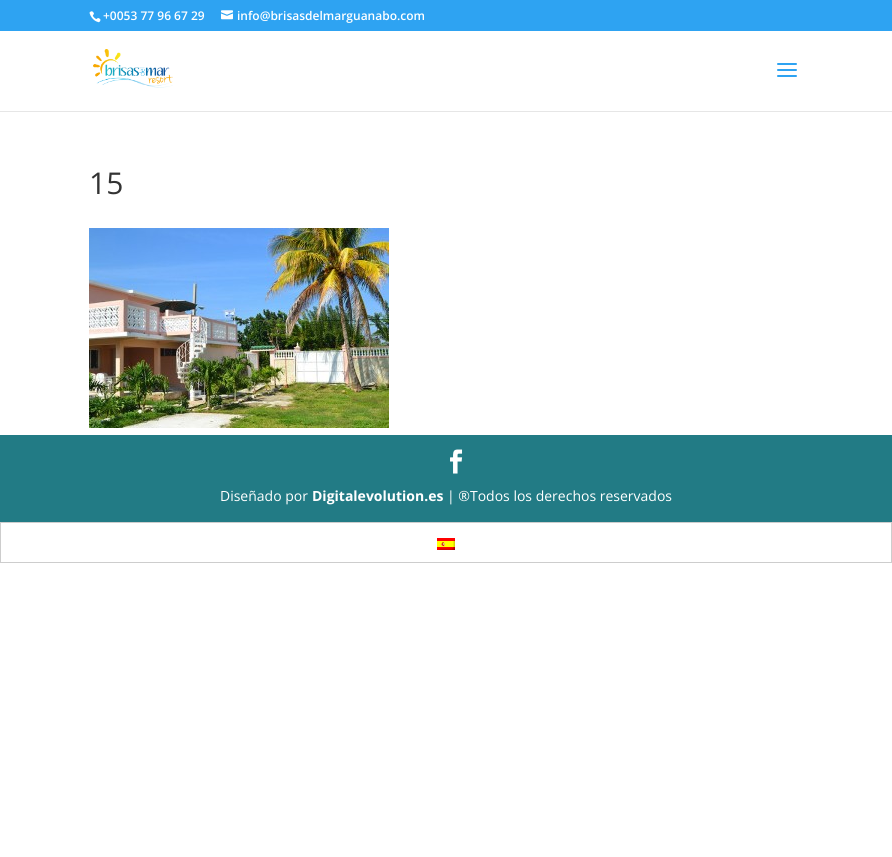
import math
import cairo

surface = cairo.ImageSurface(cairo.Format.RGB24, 892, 857)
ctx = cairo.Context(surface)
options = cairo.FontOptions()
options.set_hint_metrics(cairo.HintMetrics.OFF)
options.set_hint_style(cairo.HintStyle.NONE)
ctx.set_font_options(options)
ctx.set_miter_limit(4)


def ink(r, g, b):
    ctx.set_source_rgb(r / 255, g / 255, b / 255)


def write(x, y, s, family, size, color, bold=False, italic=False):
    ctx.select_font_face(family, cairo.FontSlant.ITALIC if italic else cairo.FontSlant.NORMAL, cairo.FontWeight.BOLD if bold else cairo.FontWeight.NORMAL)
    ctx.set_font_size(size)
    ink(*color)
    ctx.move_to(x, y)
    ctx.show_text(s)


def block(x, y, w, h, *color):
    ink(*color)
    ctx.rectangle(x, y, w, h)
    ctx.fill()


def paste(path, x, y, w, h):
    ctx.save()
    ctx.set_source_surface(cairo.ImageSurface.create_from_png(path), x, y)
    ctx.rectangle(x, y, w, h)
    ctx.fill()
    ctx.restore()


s1 = dict(family="Open Sans SemiBold", size=12, color=(255, 255, 255))
s2 = dict(family="Open Sans", size=30, color=(51, 51, 51))
s3 = dict(family="Open Sans", size=14, color=(255, 255, 255))
s4 = dict(family="Open Sans", size=14, color=(255, 255, 255), bold=True)

ink(255, 255, 255)
ctx.paint()
block(0, 0, 892, 31, 46, 163, 242)
paste("pic1.png", 89, 11, 12, 12)
write(103, 20, "+0053 77 96 67 29", **s1)
paste("pic2.png", 221, 10, 12, 10)
write(237, 20, "info@brisasdelmarguanabo.com", **s1)
block(0, 111, 892, 1, 230, 230, 230)
paste("pic3.png", 93, 49, 80, 39)
paste("pic4.png", 777, 63, 20, 14)
write(89, 194, "15", **s2)
paste("pic5.png", 89, 228, 300, 200)
block(0, 435, 892, 87, 34, 123, 133)
paste("pic6.png", 450, 449, 13, 25)
write(220, 501, "Diseñado por", **s3)
write(312, 501, "Digitalevolution.es", **s4)
write(447, 501, "| ®Todos los derechos reservados", **s3)
ctx.rectangle(0.5, 522.5, 891, 40)
ink(205, 205, 205)
ctx.set_line_width(1)
ctx.stroke()
paste("pic7.png", 437, 538, 18, 12)
surface.write_to_png("screenshot.png")
